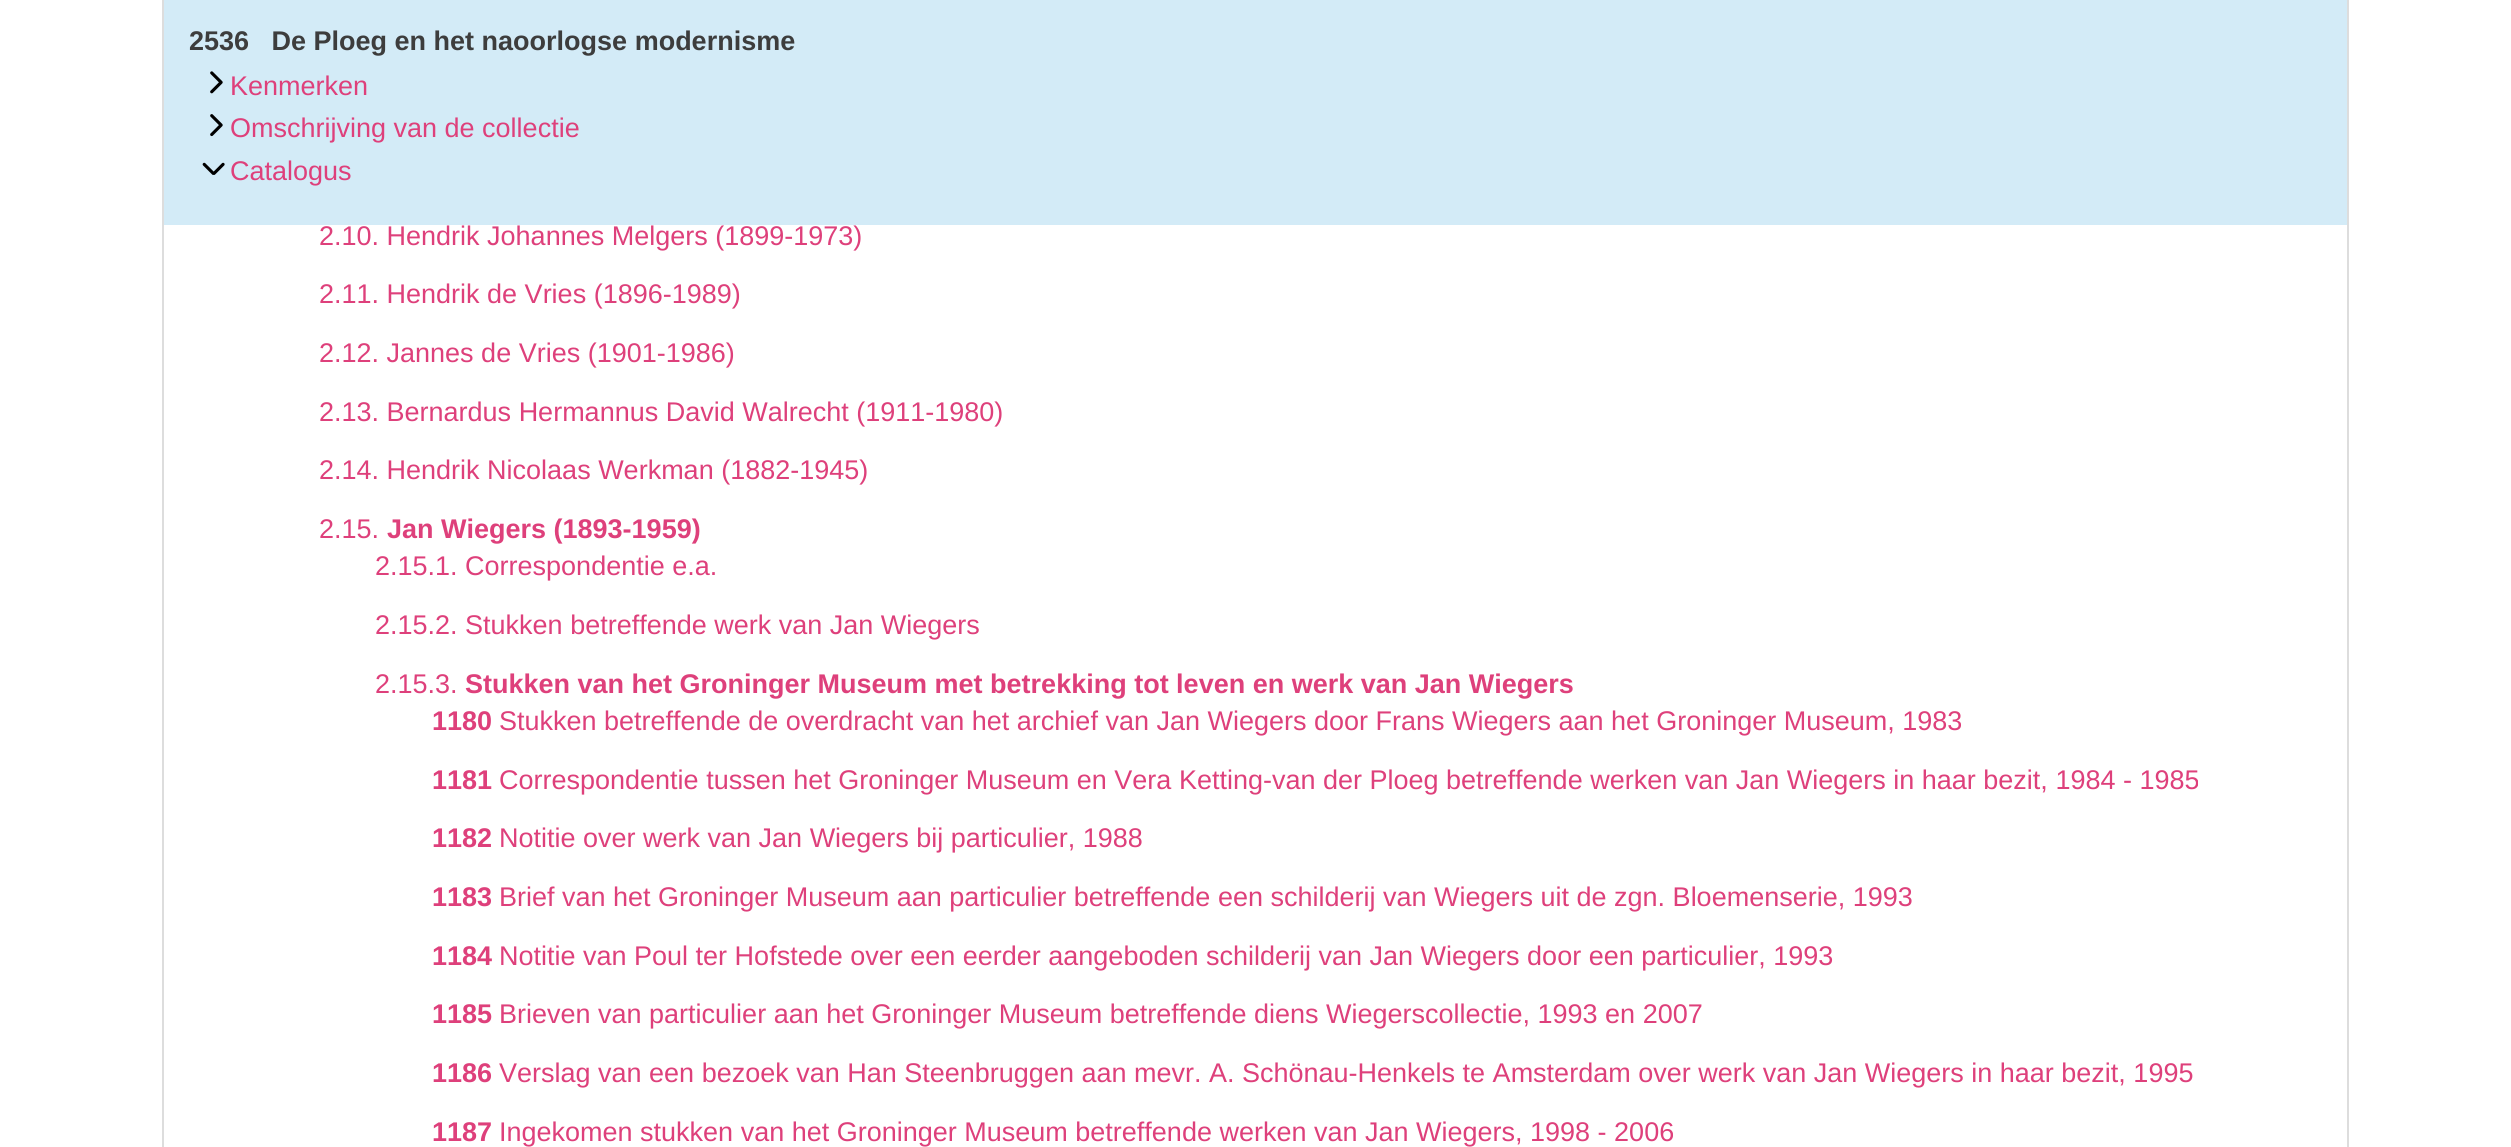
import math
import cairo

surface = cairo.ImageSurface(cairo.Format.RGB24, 2511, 1147)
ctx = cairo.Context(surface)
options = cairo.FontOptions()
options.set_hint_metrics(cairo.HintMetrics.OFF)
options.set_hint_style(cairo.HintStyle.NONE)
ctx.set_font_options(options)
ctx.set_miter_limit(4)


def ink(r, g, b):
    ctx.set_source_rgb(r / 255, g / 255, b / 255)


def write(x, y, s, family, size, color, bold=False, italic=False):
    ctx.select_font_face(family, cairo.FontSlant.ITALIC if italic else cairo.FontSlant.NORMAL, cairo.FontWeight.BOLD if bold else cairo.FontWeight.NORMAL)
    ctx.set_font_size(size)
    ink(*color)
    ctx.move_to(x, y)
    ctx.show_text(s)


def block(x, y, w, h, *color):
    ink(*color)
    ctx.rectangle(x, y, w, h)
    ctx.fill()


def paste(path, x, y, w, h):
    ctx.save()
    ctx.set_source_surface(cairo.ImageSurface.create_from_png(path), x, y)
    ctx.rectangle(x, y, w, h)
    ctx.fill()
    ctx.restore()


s1 = dict(family="Liberation Sans", size=27, color=(61, 61, 61), bold=True)
s2 = dict(family="Liberation Sans", size=27, color=(222, 64, 123))
s3 = dict(family="Liberation Sans", size=27, color=(222, 64, 123), bold=True)

ink(255, 255, 255)
ctx.paint()
ctx.rectangle(163, -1, 2185, 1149)
ink(221, 221, 221)
ctx.stroke()
block(164, 0, 2183, 225, 211, 235, 247)
write(189, 50, "2536   De Ploeg en het naoorlogse modernisme", **s1)
paste("pic1.png", 210, 71, 13, 23)
write(230, 95, "Kenmerken", **s2)
paste("pic2.png", 210, 114, 13, 23)
write(230, 137, "Omschrijving van de collectie", **s2)
paste("pic3.png", 202, 162, 23, 13)
write(230, 180, "Catalogus", **s2)
write(319, 245, "2.10. Hendrik Johannes Melgers (1899-1973)", **s2)
write(319, 303, "2.11. Hendrik de Vries (1896-1989)", **s2)
write(319, 362, "2.12. Jannes de Vries (1901-1986)", **s2)
write(319, 421, "2.13. Bernardus Hermannus David Walrecht (1911-1980)", **s2)
write(319, 479, "2.14. Hendrik Nicolaas Werkman (1882-1945)", **s2)
write(319, 538, "2.15.", **s2)
write(387, 538, "Jan Wiegers (1893-1959)", **s3)
write(375, 575, "2.15.1. Correspondentie e.a.", **s2)
write(375, 634, "2.15.2. Stukken betreffende werk van Jan Wiegers", **s2)
write(375, 693, "2.15.3.", **s2)
write(465, 693, "Stukken van het Groninger Museum met betrekking tot leven en werk van Jan Wiegers", **s3)
write(432, 730, "1180", **s3)
write(499, 730, "Stukken betreffende de overdracht van het archief van Jan Wiegers door Frans Wiegers aan het Groninger Museum, 1983", **s2)
write(432, 789, "1181", **s3)
write(499, 789, "Correspondentie tussen het Groninger Museum en Vera Ketting-van der Ploeg betreffende werken van Jan Wiegers in haar bezit, 1984 - 1985", **s2)
write(432, 847, "1182", **s3)
write(499, 847, "Notitie over werk van Jan Wiegers bij particulier, 1988", **s2)
write(432, 906, "1183", **s3)
write(499, 906, "Brief van het Groninger Museum aan particulier betreffende een schilderij van Wiegers uit de zgn. Bloemenserie, 1993", **s2)
write(432, 965, "1184", **s3)
write(499, 965, "Notitie van Poul ter Hofstede over een eerder aangeboden schilderij van Jan Wiegers door een particulier, 1993", **s2)
write(432, 1023, "1185", **s3)
write(499, 1023, "Brieven van particulier aan het Groninger Museum betreffende diens Wiegerscollectie, 1993 en 2007", **s2)
write(432, 1082, "1186", **s3)
write(499, 1082, "Verslag van een bezoek van Han Steenbruggen aan mevr. A. Schönau-Henkels te Amsterdam over werk van Jan Wiegers in haar bezit, 1995", **s2)
write(432, 1141, "1187", **s3)
write(499, 1141, "Ingekomen stukken van het Groninger Museum betreffende werken van Jan Wiegers, 1998 - 2006", **s2)
surface.write_to_png("screenshot.png")
